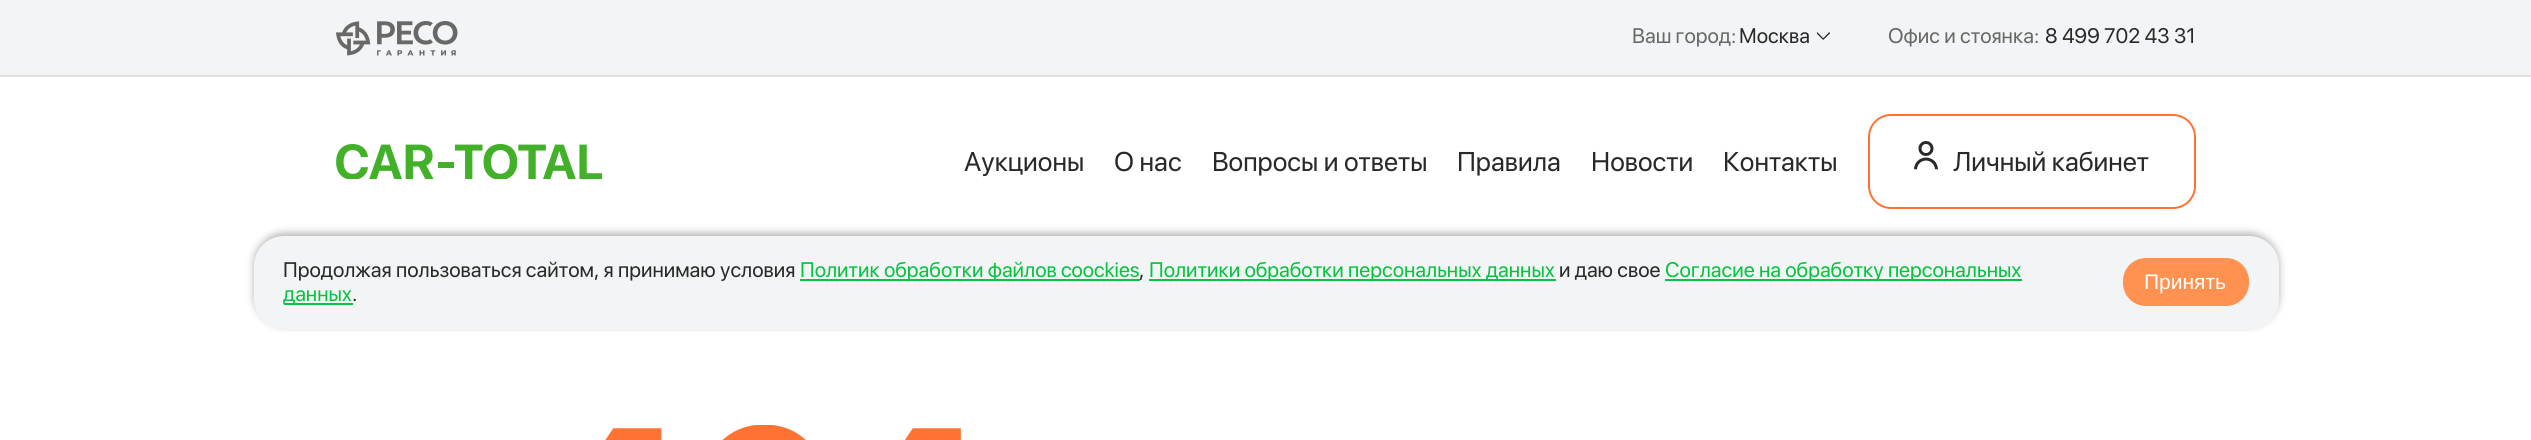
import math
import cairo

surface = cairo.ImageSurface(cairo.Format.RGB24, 2531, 440)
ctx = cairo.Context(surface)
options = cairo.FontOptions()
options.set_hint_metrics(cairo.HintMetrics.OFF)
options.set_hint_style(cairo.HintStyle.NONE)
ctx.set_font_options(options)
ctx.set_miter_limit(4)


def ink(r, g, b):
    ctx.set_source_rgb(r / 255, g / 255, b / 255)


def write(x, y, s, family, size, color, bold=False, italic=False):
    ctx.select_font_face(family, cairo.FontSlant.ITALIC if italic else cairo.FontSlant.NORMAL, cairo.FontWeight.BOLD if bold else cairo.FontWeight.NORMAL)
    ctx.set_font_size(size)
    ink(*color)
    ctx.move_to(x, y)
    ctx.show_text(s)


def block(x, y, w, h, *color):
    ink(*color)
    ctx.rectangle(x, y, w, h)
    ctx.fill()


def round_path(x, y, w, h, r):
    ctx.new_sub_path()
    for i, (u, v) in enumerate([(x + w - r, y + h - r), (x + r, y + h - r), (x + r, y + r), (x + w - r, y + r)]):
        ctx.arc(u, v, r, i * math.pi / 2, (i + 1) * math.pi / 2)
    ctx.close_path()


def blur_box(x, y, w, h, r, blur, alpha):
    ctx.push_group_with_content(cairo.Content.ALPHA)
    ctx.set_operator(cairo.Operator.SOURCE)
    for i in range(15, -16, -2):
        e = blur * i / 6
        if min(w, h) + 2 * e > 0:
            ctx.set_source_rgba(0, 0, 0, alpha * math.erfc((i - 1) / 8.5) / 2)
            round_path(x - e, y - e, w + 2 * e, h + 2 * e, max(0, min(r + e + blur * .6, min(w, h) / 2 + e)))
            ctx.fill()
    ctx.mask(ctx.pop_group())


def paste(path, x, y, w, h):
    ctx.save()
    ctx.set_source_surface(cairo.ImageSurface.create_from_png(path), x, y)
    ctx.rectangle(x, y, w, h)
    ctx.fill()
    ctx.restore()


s1 = dict(family="SF Pro Display", size=21, color=(104, 104, 104))
s2 = dict(family="SF Pro Display", size=21, color=(41, 41, 41))
s3 = dict(family="SF Pro Display", size=27, color=(41, 41, 41))
s4 = dict(family="SF Pro Display", size=21, color=(6, 195, 64))
s5 = dict(family="Liberation Sans", size=21, color=(255, 255, 255))

ink(255, 255, 255)
ctx.paint()
block(0, 0, 2531, 75, 242, 244, 245)
block(0, 75, 2531, 2, 224, 224, 224)
paste("pic1.png", 336, 21, 122, 35)
write(1632, 43, "Ваш город:", **s1)
write(1739, 43, "Москва", **s2)
paste("pic2.png", 1816, 32, 14, 8)
write(1888, 43, "Офис и стоянка:", **s1)
write(2045, 43, "8 499 702 43 31", **s2)
paste("pic3.png", 336, 144, 267, 35)
write(964, 171, "Аукционы", **s3)
write(1114, 171, "О нас", **s3)
write(1212, 171, "Вопросы и ответы", **s3)
write(1457, 171, "Правила", **s3)
write(1591, 171, "Новости", **s3)
write(1723, 171, "Контакты", **s3)
round_path(1869, 115, 326, 93, 22)
ink(254, 115, 51)
ctx.stroke()
paste("pic4.png", 1914, 141, 24, 29)
write(1953, 171, "Личный кабинет", **s3)
paste("pic5.png", 605, 425, 356, 15)
ink(0, 0, 0)
blur_box(254, 233, 2025, 93, 30, 4, 0.3)
ink(242, 244, 245)
round_path(254, 236, 2025, 93, 30)
ctx.fill()
write(283, 277, "Продолжая пользоваться сайтом, я принимаю условия", **s2)
block(800, 279, 340, 2, 6, 195, 64)
write(800, 277, "Политик обработки файлов coockies", **s4)
write(1139, 277, ",", **s2)
block(1149, 279, 407, 2, 6, 195, 64)
write(1149, 277, "Политики обработки персональных данных", **s4)
write(1559, 277, "и даю свое", **s2)
block(1665, 279, 357, 2, 6, 195, 64)
write(1665, 277, "Согласие на обработку персональных", **s4)
block(284, 303, 69, 2, 6, 195, 64)
write(283, 301, "данных", **s4)
write(352, 301, ".", **s2)
ink(255, 145, 81)
round_path(2123, 258, 126, 48, 23)
ctx.fill()
write(2144, 289, "Принять", **s5)
surface.write_to_png("screenshot.png")
